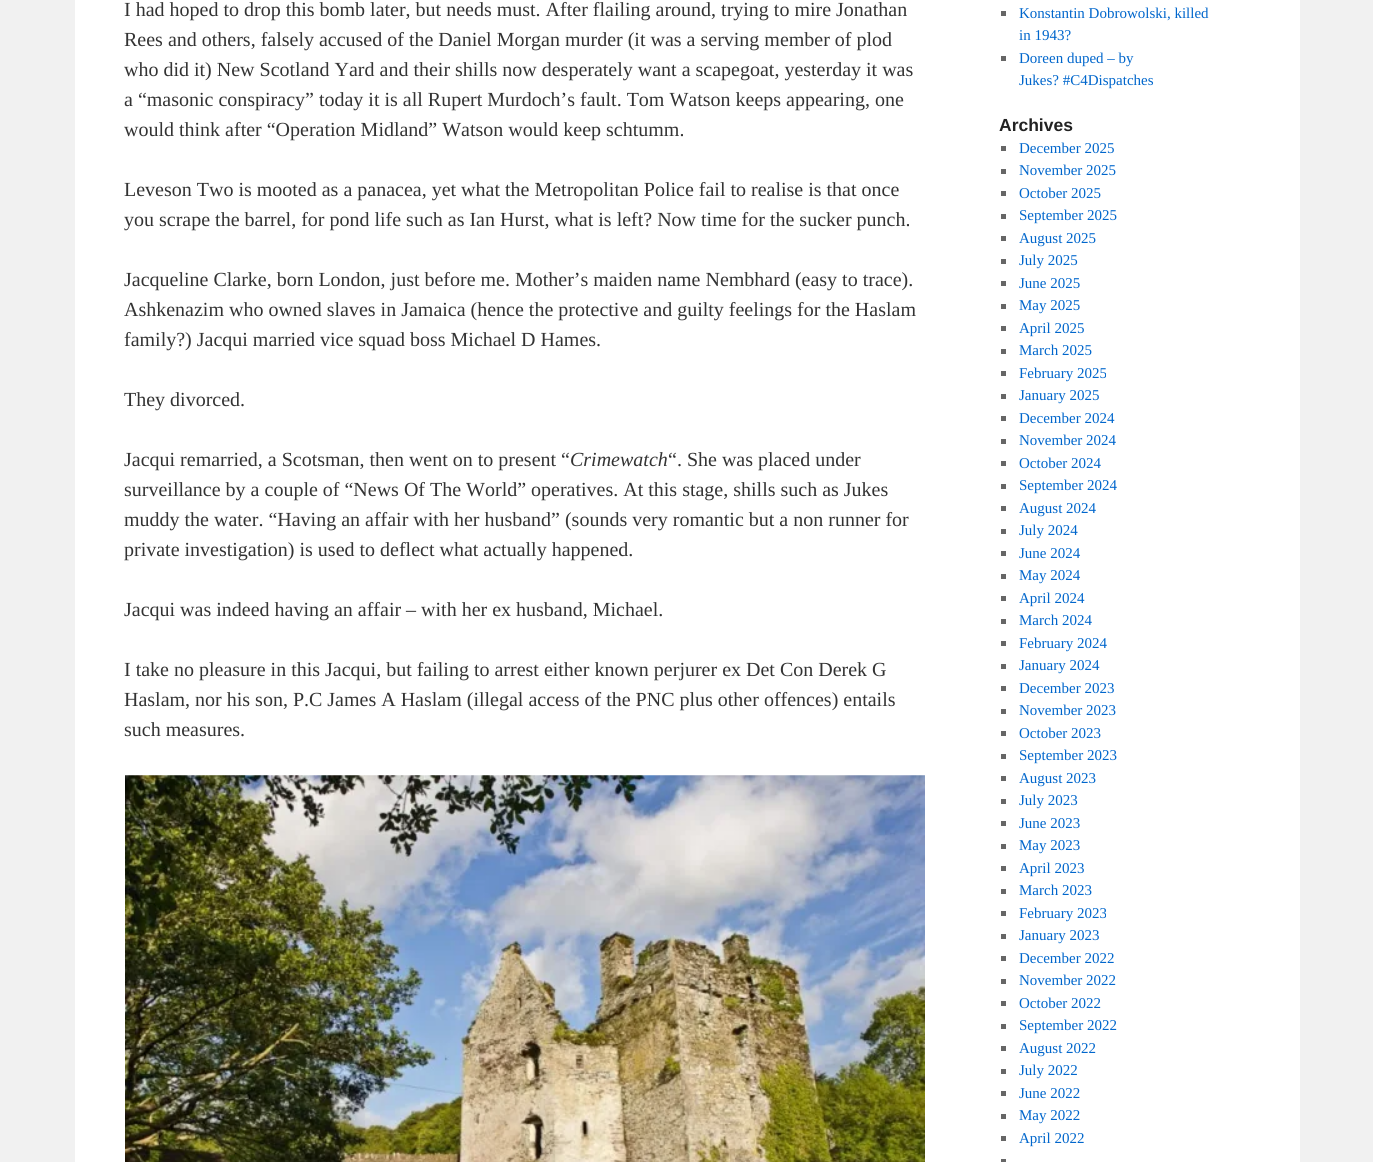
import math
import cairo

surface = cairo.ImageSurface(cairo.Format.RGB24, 1373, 1162)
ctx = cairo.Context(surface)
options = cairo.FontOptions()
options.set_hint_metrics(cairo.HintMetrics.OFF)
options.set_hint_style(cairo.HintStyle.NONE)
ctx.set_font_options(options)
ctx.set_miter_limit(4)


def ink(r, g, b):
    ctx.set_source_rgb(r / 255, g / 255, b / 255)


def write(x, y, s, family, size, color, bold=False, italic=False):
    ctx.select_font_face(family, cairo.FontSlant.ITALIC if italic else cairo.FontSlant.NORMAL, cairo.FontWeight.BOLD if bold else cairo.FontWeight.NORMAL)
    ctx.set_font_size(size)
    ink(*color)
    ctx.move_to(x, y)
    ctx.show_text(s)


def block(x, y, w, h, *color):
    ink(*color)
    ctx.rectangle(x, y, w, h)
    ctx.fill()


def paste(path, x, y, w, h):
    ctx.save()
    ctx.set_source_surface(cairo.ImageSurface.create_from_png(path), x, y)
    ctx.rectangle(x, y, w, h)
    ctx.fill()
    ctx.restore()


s1 = dict(family="Liberation Serif", size=20, color=(51, 51, 51))
s2 = dict(family="Liberation Serif", size=20, color=(51, 51, 51), italic=True)
s3 = dict(family="Liberation Serif", size=15, color=(0, 102, 204))
s4 = dict(family="Liberation Sans", size=17.5, color=(34, 34, 34), bold=True)

ink(241, 241, 241)
ctx.paint()
block(75, 0, 1225, 1162, 255, 255, 255)
write(124, 16, "I had hoped to drop this bomb later, but needs must. After flailing around, trying to mire Jonathan", **s1)
write(124, 46, "Rees and others, falsely accused of the Daniel Morgan murder (it was a serving member of plod", **s1)
write(124, 76, "who did it) New Scotland Yard and their shills now desperately want a scapegoat, yesterday it was", **s1)
write(124, 106, "a “masonic conspiracy” today it is all Rupert Murdoch’s fault. Tom Watson keeps appearing, one", **s1)
write(124, 136, "would think after “Operation Midland” Watson would keep schtumm.", **s1)
write(124, 196, "Leveson Two is mooted as a panacea, yet what the Metropolitan Police fail to realise is that once", **s1)
write(124, 226, "you scrape the barrel, for pond life such as Ian Hurst, what is left? Now time for the sucker punch.", **s1)
write(124, 286, "Jacqueline Clarke, born London, just before me. Mother’s maiden name Nembhard (easy to trace).", **s1)
write(124, 316, "Ashkenazim who owned slaves in Jamaica (hence the protective and guilty feelings for the Haslam", **s1)
write(124, 346, "family?) Jacqui married vice squad boss Michael D Hames.", **s1)
write(124, 406, "They divorced.", **s1)
write(124, 466, "Jacqui remarried, a Scotsman, then went on to present “", **s1)
write(570, 466, "Crimewatch", **s2)
write(668, 466, "“. She was placed under", **s1)
write(124, 496, "surveillance by a couple of “News Of The World” operatives. At this stage, shills such as Jukes", **s1)
write(124, 526, "muddy the water. “Having an affair with her husband” (sounds very romantic but a non runner for", **s1)
write(124, 556, "private investigation) is used to deflect what actually happened.", **s1)
write(124, 616, "Jacqui was indeed having an affair – with her ex husband, Michael.", **s1)
write(124, 676, "I take no pleasure in this Jacqui, but failing to arrest either known perjurer ex Det Con Derek G", **s1)
write(124, 706, "Haslam, nor his son, P.C James A Haslam (illegal access of the PNC plus other offences) entails", **s1)
write(124, 736, "such measures.", **s1)
paste("pic1.png", 125, 775, 800, 387)
block(1001, 11, 5, 5, 102, 102, 102)
write(1019, 18, "Konstantin Dobrowolski, killed", **s3)
write(1019, 40, "in 1943?", **s3)
block(1001, 56, 5, 5, 102, 102, 102)
write(1019, 63, "Doreen duped – by", **s3)
write(1019, 85, "Jukes? #C4Dispatches", **s3)
write(999, 131, "Archives", **s4)
block(1001, 146, 5, 5, 102, 102, 102)
write(1019, 153, "December 2025", **s3)
block(1001, 169, 5, 5, 102, 102, 102)
write(1019, 175, "November 2025", **s3)
block(1001, 191, 5, 5, 102, 102, 102)
write(1019, 198, "October 2025", **s3)
block(1001, 214, 5, 5, 102, 102, 102)
write(1019, 220, "September 2025", **s3)
block(1001, 236, 5, 5, 102, 102, 102)
write(1019, 243, "August 2025", **s3)
block(1001, 259, 5, 5, 102, 102, 102)
write(1019, 265, "July 2025", **s3)
block(1001, 281, 5, 5, 102, 102, 102)
write(1019, 288, "June 2025", **s3)
block(1001, 304, 5, 5, 102, 102, 102)
write(1019, 310, "May 2025", **s3)
block(1001, 326, 5, 5, 102, 102, 102)
write(1019, 333, "April 2025", **s3)
block(1001, 349, 5, 5, 102, 102, 102)
write(1019, 355, "March 2025", **s3)
block(1001, 371, 5, 5, 102, 102, 102)
write(1019, 378, "February 2025", **s3)
block(1001, 394, 5, 5, 102, 102, 102)
write(1019, 400, "January 2025", **s3)
block(1001, 416, 5, 5, 102, 102, 102)
write(1019, 423, "December 2024", **s3)
block(1001, 439, 5, 5, 102, 102, 102)
write(1019, 445, "November 2024", **s3)
block(1001, 461, 5, 5, 102, 102, 102)
write(1019, 468, "October 2024", **s3)
block(1001, 484, 5, 5, 102, 102, 102)
write(1019, 490, "September 2024", **s3)
block(1001, 506, 5, 5, 102, 102, 102)
write(1019, 513, "August 2024", **s3)
block(1001, 529, 5, 5, 102, 102, 102)
write(1019, 535, "July 2024", **s3)
block(1001, 551, 5, 5, 102, 102, 102)
write(1019, 558, "June 2024", **s3)
block(1001, 574, 5, 5, 102, 102, 102)
write(1019, 580, "May 2024", **s3)
block(1001, 596, 5, 5, 102, 102, 102)
write(1019, 603, "April 2024", **s3)
block(1001, 619, 5, 5, 102, 102, 102)
write(1019, 625, "March 2024", **s3)
block(1001, 641, 5, 5, 102, 102, 102)
write(1019, 648, "February 2024", **s3)
block(1001, 664, 5, 5, 102, 102, 102)
write(1019, 670, "January 2024", **s3)
block(1001, 686, 5, 5, 102, 102, 102)
write(1019, 693, "December 2023", **s3)
block(1001, 709, 5, 5, 102, 102, 102)
write(1019, 715, "November 2023", **s3)
block(1001, 731, 5, 5, 102, 102, 102)
write(1019, 738, "October 2023", **s3)
block(1001, 754, 5, 5, 102, 102, 102)
write(1019, 760, "September 2023", **s3)
block(1001, 776, 5, 5, 102, 102, 102)
write(1019, 783, "August 2023", **s3)
block(1001, 799, 5, 5, 102, 102, 102)
write(1019, 805, "July 2023", **s3)
block(1001, 821, 5, 5, 102, 102, 102)
write(1019, 828, "June 2023", **s3)
block(1001, 844, 5, 5, 102, 102, 102)
write(1019, 850, "May 2023", **s3)
block(1001, 866, 5, 5, 102, 102, 102)
write(1019, 873, "April 2023", **s3)
block(1001, 889, 5, 5, 102, 102, 102)
write(1019, 895, "March 2023", **s3)
block(1001, 911, 5, 5, 102, 102, 102)
write(1019, 918, "February 2023", **s3)
block(1001, 934, 5, 5, 102, 102, 102)
write(1019, 940, "January 2023", **s3)
block(1001, 956, 5, 5, 102, 102, 102)
write(1019, 963, "December 2022", **s3)
block(1001, 979, 5, 5, 102, 102, 102)
write(1019, 985, "November 2022", **s3)
block(1001, 1001, 5, 5, 102, 102, 102)
write(1019, 1008, "October 2022", **s3)
block(1001, 1024, 5, 5, 102, 102, 102)
write(1019, 1030, "September 2022", **s3)
block(1001, 1046, 5, 5, 102, 102, 102)
write(1019, 1053, "August 2022", **s3)
block(1001, 1069, 5, 5, 102, 102, 102)
write(1019, 1075, "July 2022", **s3)
block(1001, 1091, 5, 5, 102, 102, 102)
write(1019, 1098, "June 2022", **s3)
block(1001, 1114, 5, 5, 102, 102, 102)
write(1019, 1120, "May 2022", **s3)
block(1001, 1136, 5, 5, 102, 102, 102)
write(1019, 1143, "April 2022", **s3)
block(1001, 1159, 5, 3, 102, 102, 102)
surface.write_to_png("screenshot.png")
